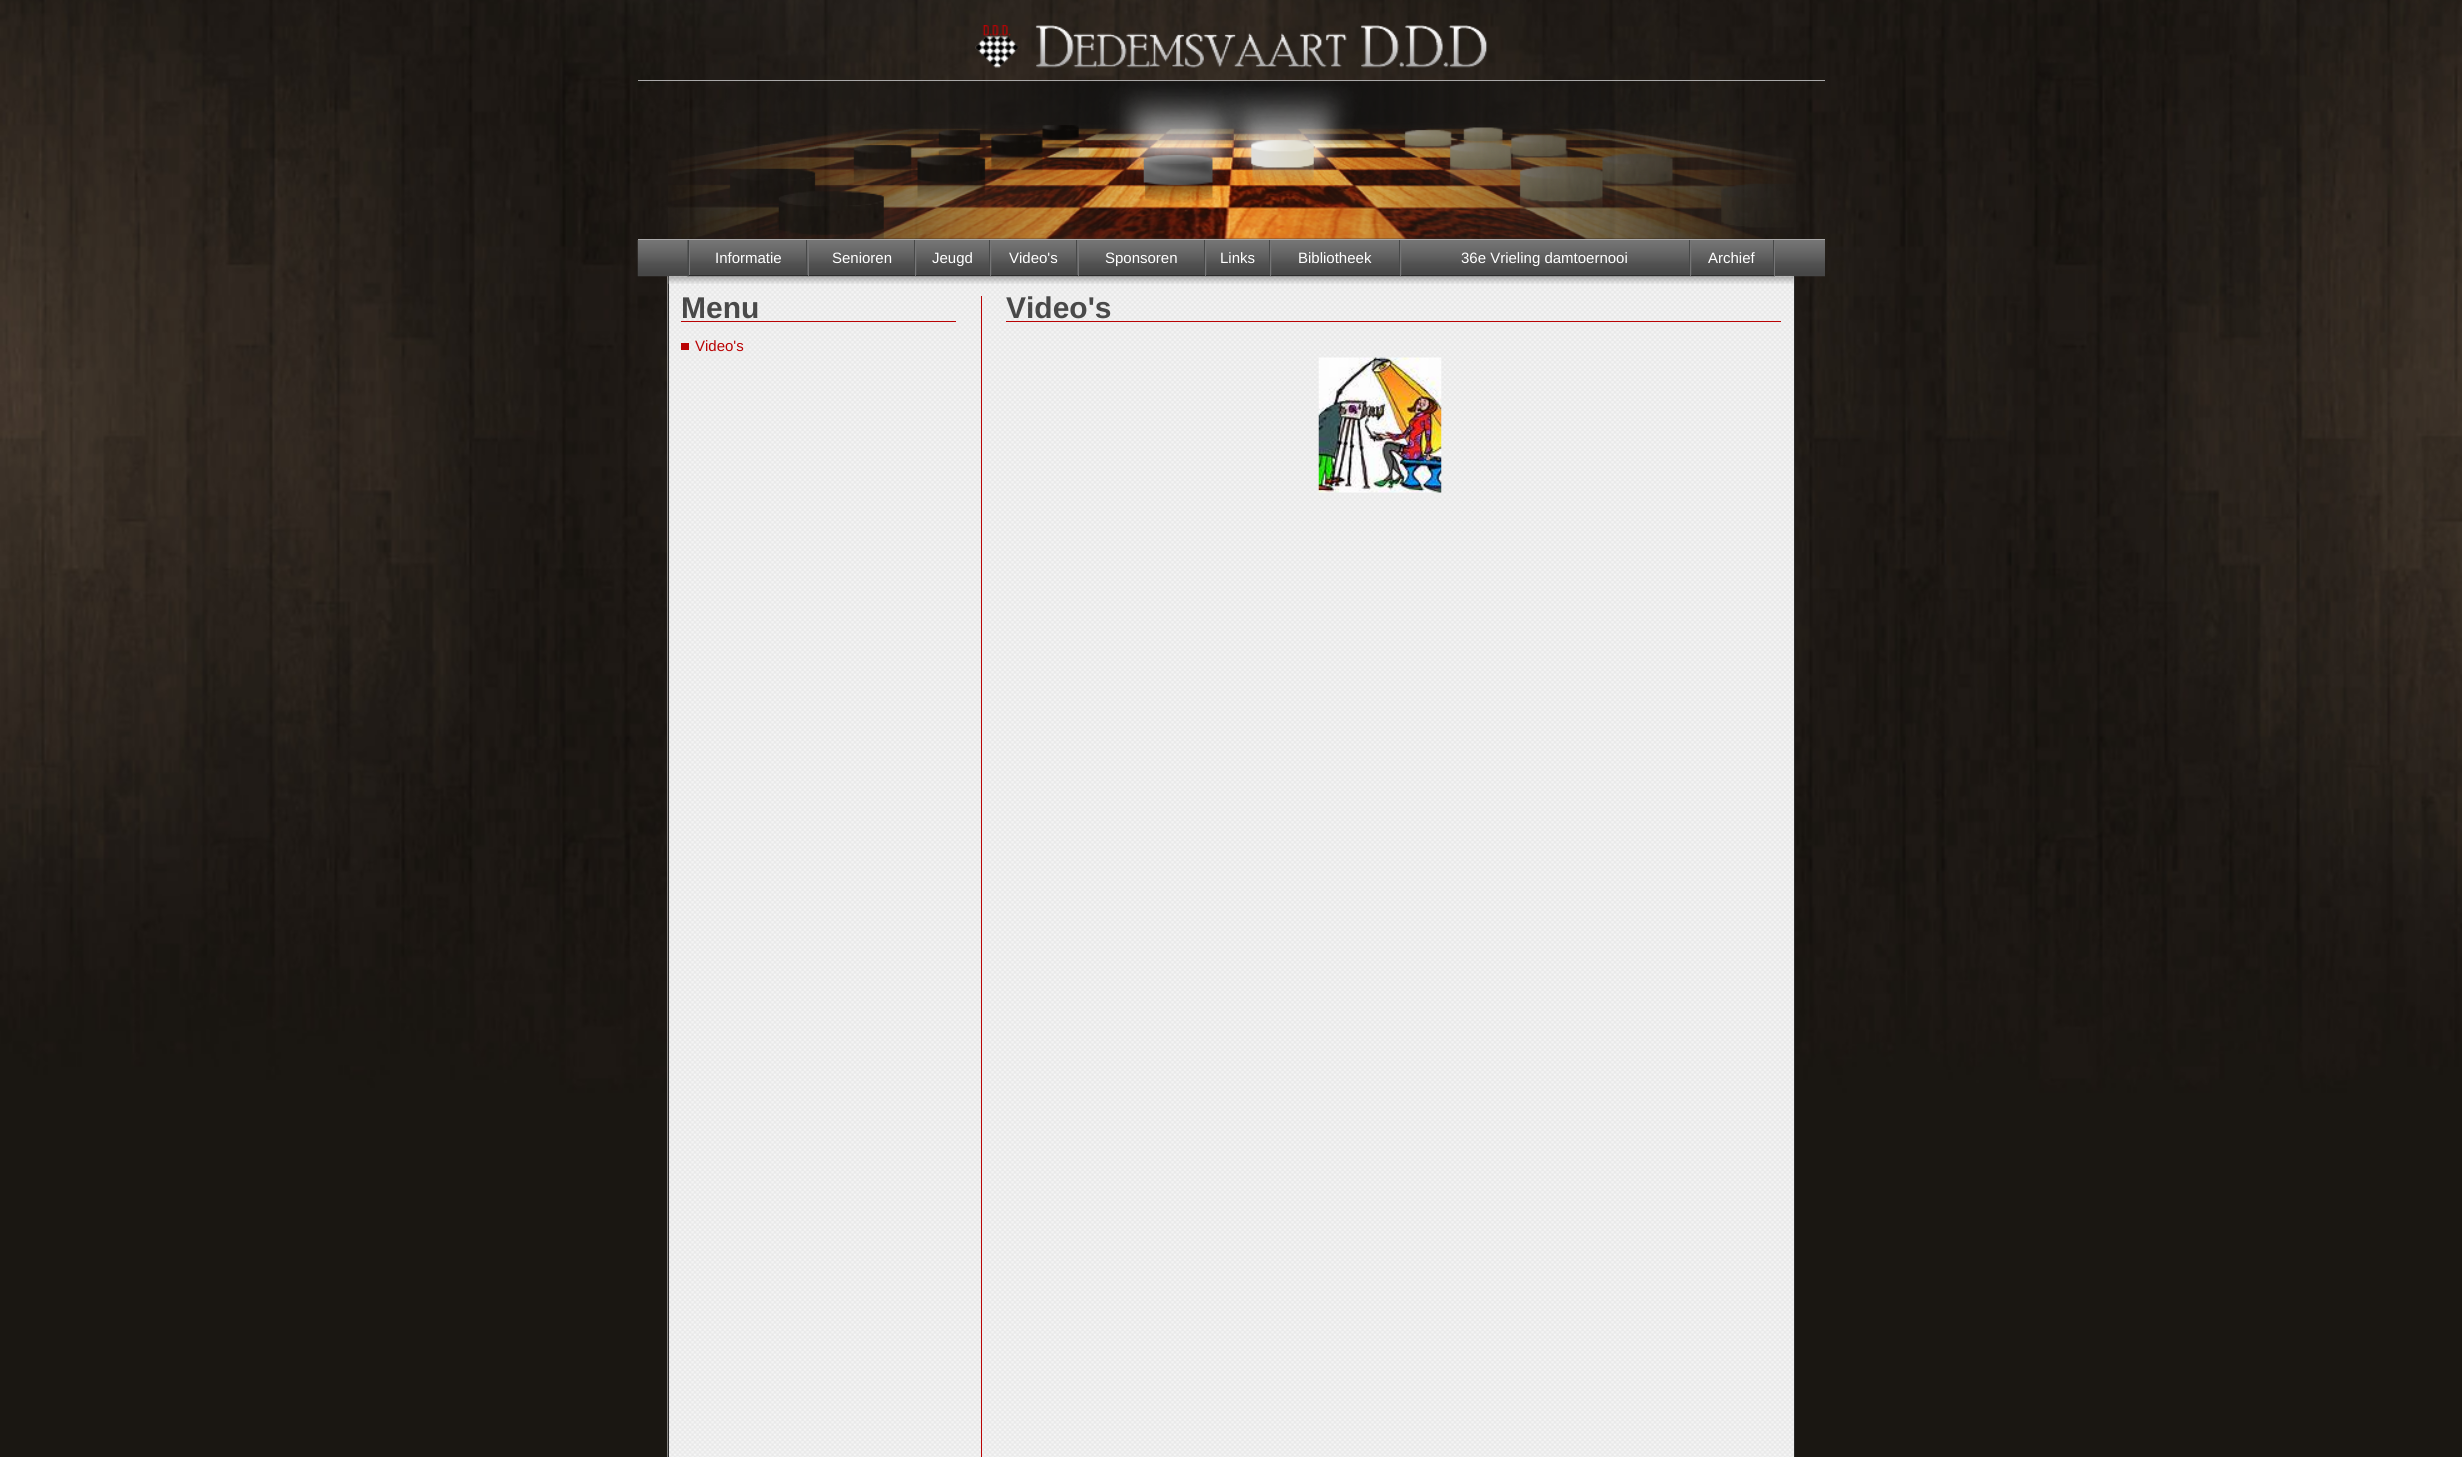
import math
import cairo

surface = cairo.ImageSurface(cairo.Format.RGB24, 2462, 1457)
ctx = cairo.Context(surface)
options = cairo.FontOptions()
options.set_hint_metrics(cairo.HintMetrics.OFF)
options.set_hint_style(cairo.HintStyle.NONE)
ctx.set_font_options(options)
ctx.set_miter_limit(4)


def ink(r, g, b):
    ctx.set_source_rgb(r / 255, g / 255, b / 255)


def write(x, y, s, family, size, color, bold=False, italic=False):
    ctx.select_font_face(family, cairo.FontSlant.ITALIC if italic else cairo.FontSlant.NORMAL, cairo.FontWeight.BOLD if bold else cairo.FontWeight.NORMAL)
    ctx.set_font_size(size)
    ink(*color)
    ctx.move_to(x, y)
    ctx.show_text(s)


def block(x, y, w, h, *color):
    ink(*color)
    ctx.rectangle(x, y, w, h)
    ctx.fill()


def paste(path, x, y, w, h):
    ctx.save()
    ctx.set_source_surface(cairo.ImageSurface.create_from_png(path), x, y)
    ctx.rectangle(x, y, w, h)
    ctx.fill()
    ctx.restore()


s1 = dict(family="Liberation Sans", size=15, color=(255, 255, 255))
s2 = dict(family="Liberation Sans", size=30, color=(73, 73, 73), bold=True)
s3 = dict(family="Liberation Sans", size=15, color=(186, 3, 4))

ink(255, 255, 255)
ctx.paint()
paste("pic1.png", 0, 0, 2462, 1457)
paste("pic2.png", 975, 25, 513, 43)
block(638, 80, 1187, 1, 170, 169, 169)
paste("pic3.png", 668, 81, 1128, 158)
block(638, 239, 1187, 1, 170, 169, 169)
paste("pic4.png", 637, 240, 1188, 37)
paste("pic6.png", 667, 276, 1127, 1181)
block(668, 276, 1, 1181, 44, 44, 44)
paste("pic7.png", 668, 276, 1126, 8)
paste("pic5.png", 687, 240, 1088, 37)
block(688, 275, 1087, 1, 44, 44, 44)
block(808, 240, 1, 36, 117, 117, 118)
block(688, 240, 1, 36, 71, 72, 72)
block(806, 240, 1, 35, 71, 72, 72)
block(689, 240, 1, 35, 117, 117, 118)
write(715, 263, "Informatie", **s1)
block(915, 275, 1, 1, 117, 117, 118)
block(914, 240, 1, 35, 71, 72, 72)
write(832, 263, "Senioren", **s1)
block(990, 275, 1, 1, 117, 117, 118)
block(989, 240, 1, 35, 71, 72, 72)
write(932, 263, "Jeugd", **s1)
block(1078, 240, 1, 36, 117, 117, 118)
block(1076, 240, 1, 35, 71, 72, 72)
write(1009, 263, "Video's", **s1)
block(1205, 275, 1, 1, 117, 117, 118)
block(1204, 240, 1, 35, 71, 72, 72)
write(1105, 263, "Sponsoren", **s1)
block(1270, 275, 1, 1, 117, 117, 118)
block(1269, 240, 1, 35, 71, 72, 72)
write(1220, 263, "Links", **s1)
block(1400, 275, 1, 1, 117, 117, 118)
block(1399, 240, 1, 35, 71, 72, 72)
write(1298, 263, "Bibliotheek", **s1)
block(1690, 275, 1, 1, 117, 117, 118)
block(1689, 240, 1, 35, 71, 72, 72)
write(1461, 263, "36e Vrieling damtoernooi", **s1)
block(1774, 275, 1, 1, 117, 117, 118)
block(1773, 240, 1, 35, 71, 72, 72)
write(1708, 263, "Archief", **s1)
block(1794, 276, 1, 1181, 44, 44, 44)
block(681, 321, 275, 1, 186, 3, 4)
write(681, 318, "Menu", **s2)
block(681, 343, 8, 7, 186, 3, 4)
write(695, 351, "Video's", **s3)
block(981, 296, 1, 1161, 186, 3, 4)
block(1006, 321, 775, 1, 186, 3, 4)
write(1006, 318, "Video's", **s2)
paste("pic8.png", 1318, 357, 124, 136)
surface.write_to_png("screenshot.png")
